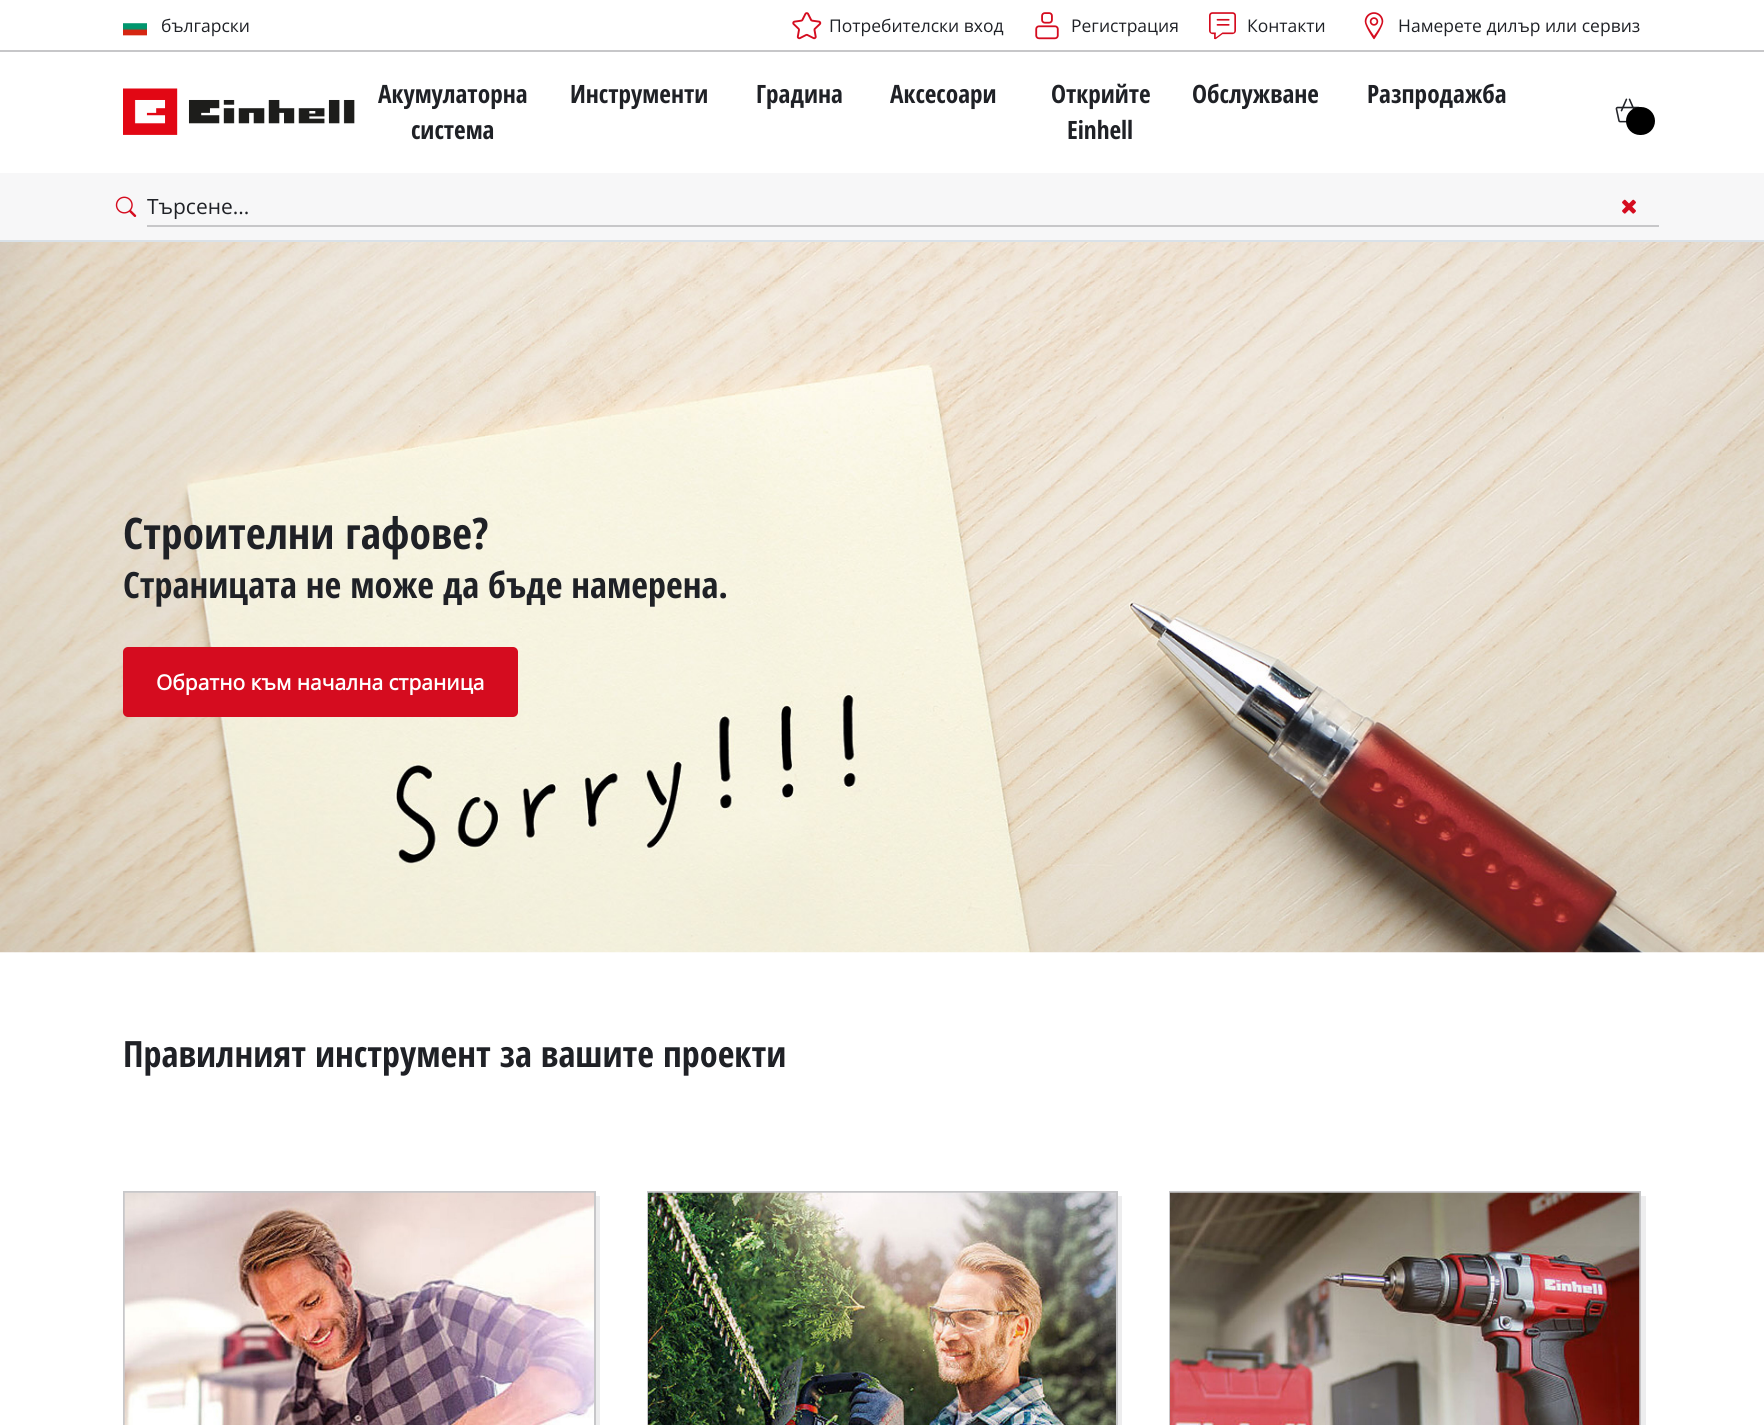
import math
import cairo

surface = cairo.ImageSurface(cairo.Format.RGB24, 1764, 1425)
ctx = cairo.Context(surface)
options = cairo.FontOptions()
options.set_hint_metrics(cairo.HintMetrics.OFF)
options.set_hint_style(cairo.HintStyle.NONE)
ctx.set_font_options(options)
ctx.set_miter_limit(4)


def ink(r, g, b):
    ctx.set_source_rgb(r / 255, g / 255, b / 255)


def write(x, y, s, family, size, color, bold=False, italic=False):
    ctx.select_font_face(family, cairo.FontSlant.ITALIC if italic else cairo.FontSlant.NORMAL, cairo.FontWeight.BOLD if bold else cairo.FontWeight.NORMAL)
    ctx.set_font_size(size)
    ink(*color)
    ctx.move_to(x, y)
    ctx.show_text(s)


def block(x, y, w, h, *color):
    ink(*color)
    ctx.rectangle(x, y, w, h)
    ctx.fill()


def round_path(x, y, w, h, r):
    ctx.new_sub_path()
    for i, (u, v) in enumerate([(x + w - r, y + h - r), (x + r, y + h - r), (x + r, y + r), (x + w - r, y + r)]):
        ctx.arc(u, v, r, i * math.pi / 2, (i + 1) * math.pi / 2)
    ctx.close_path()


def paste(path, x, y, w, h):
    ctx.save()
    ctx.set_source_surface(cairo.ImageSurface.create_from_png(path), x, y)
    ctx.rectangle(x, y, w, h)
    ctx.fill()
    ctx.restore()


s1 = dict(family="Open Sans", size=17.5, color=(31, 33, 38))
s2 = dict(family="Open Sans Condensed", size=25.25, color=(31, 33, 38), bold=True)
s3 = dict(family="Open Sans", size=21, color=(31, 33, 38))
s4 = dict(family="Open Sans Condensed", size=43.5, color=(31, 33, 38), bold=True)
s5 = dict(family="Open Sans Condensed", size=36.25, color=(31, 33, 38), bold=True)
s6 = dict(family="Open Sans", size=21, color=(255, 255, 255), bold=True)

ink(255, 255, 255)
ctx.paint()
block(0, 50, 1764, 2, 199, 199, 201)
paste("pic1.png", 123, 23, 24, 13)
write(161, 32, "български", **s1)
paste("pic2.png", 792, 12, 30, 28)
write(829, 32, "Потребителски вход", **s1)
paste("pic3.png", 1035, 12, 24, 28)
write(1071, 32, "Регистрация", **s1)
paste("pic4.png", 1209, 12, 27, 28)
write(1247, 32, "Контакти", **s1)
paste("pic5.png", 1364, 12, 20, 28)
write(1398, 32, "Намерете дилър или сервиз", **s1)
block(0, 240, 1764, 2, 217, 225, 232)
paste("pic6.png", 123, 88, 232, 47)
write(378, 103, "Акумулаторна", **s2)
write(411, 139, "система", **s2)
write(570, 103, "Инструменти", **s2)
write(756, 103, "Градина", **s2)
write(890, 103, "Аксесоари", **s2)
write(1051, 103, "Открийте", **s2)
write(1067, 139, "Einhell", **s2)
write(1192, 103, "Обслужване", **s2)
write(1367, 103, "Разпродажба", **s2)
paste("pic7.png", 1615, 98, 25, 25)
ink(0, 0, 0)
round_path(1626, 107, 29, 28, 14)
ctx.fill()
block(0, 173, 1764, 67, 247, 247, 248)
paste("pic8.png", 115, 196, 22, 21)
block(147, 225, 1512, 2, 199, 199, 201)
write(147, 214, "Търсене...", **s3)
paste("pic9.png", 1622, 199, 14, 15)
paste("pic10.png", 0, 242, 1764, 711)
write(123, 549, "Строителни гафове?", **s4)
write(123, 598, "Страницата не може да бъде намерена.", **s5)
ink(213, 12, 31)
round_path(123, 647, 395, 70, 5)
ctx.fill()
write(156, 690, "Обратно към начална страница", **s6)
write(123, 1067, "Правилният инструмент за вашите проекти", **s5)
ink(237, 237, 238)
ctx.new_path()
ctx.move_to(128, 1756)
ctx.line_to(128, 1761)
ctx.line_to(600, 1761)
ctx.line_to(600, 1196)
ctx.line_to(596, 1196)
ctx.line_to(596, 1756)
ctx.close_path()
ctx.fill()
ctx.rectangle(124, 1192, 471, 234)
ink(199, 199, 201)
ctx.stroke()
paste("pic11.png", 124, 1192, 470, 233)
ink(237, 237, 238)
ctx.new_path()
ctx.move_to(651, 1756)
ctx.line_to(651, 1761)
ctx.line_to(1122, 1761)
ctx.line_to(1122, 1196)
ctx.line_to(1118, 1196)
ctx.line_to(1118, 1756)
ctx.close_path()
ctx.fill()
ctx.rectangle(648, 1192, 469, 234)
ink(199, 199, 201)
ctx.stroke()
paste("pic12.png", 648, 1192, 468, 233)
ink(237, 237, 238)
ctx.new_path()
ctx.move_to(1173, 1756)
ctx.line_to(1173, 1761)
ctx.line_to(1646, 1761)
ctx.line_to(1646, 1196)
ctx.line_to(1641, 1196)
ctx.line_to(1641, 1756)
ctx.close_path()
ctx.fill()
ctx.rectangle(1170, 1192, 470, 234)
ink(199, 199, 201)
ctx.stroke()
paste("pic13.png", 1170, 1192, 470, 233)
surface.write_to_png("screenshot.png")
